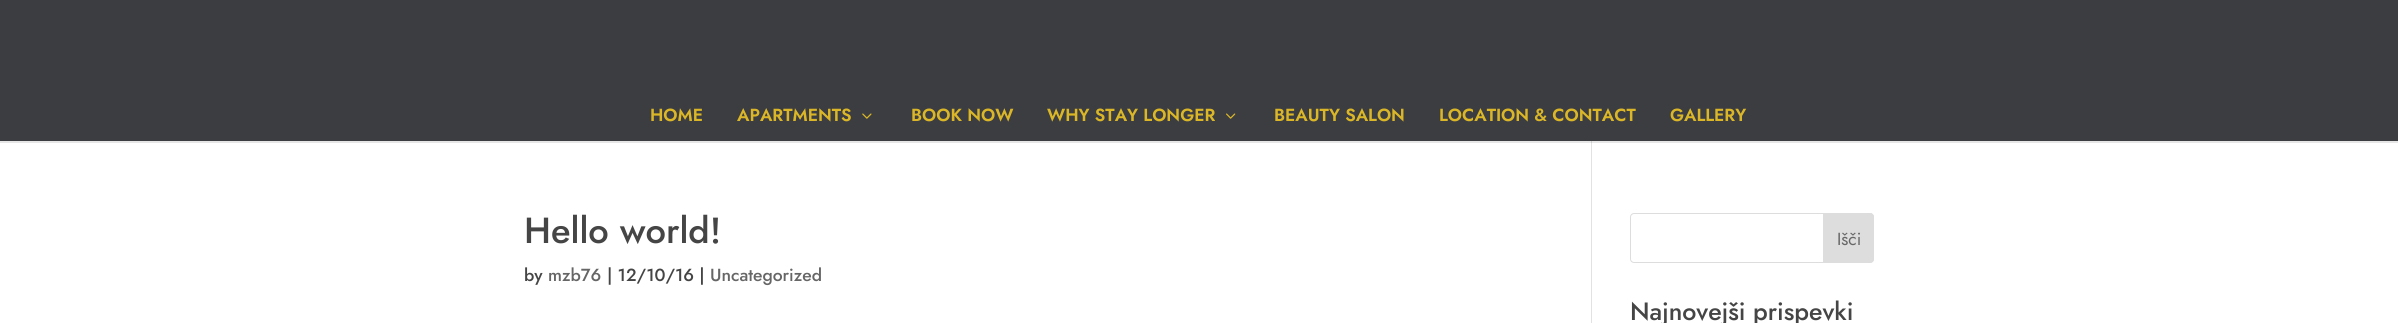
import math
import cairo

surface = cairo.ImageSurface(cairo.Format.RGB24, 2398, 323)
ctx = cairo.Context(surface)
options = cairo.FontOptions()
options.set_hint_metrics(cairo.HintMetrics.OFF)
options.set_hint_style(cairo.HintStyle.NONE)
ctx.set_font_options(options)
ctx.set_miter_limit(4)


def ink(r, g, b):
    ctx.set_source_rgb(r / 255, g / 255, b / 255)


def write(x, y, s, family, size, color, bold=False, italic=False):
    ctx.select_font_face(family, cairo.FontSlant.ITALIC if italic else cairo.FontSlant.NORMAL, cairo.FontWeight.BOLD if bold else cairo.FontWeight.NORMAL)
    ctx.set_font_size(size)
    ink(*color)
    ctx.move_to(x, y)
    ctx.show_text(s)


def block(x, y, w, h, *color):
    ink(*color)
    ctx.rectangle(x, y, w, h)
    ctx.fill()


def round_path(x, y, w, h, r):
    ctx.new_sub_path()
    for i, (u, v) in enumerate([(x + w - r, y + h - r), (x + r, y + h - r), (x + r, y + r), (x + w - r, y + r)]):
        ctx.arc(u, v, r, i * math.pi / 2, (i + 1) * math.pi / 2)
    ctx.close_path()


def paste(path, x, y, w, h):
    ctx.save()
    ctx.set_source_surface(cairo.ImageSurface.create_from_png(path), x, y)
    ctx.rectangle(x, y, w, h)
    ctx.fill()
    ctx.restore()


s1 = dict(family="Jost SemiBold", size=17.5, color=(219, 183, 39))
s2 = dict(family="Jost Medium", size=36.25, color=(69, 69, 69))
s3 = dict(family="Jost Medium", size=17.5, color=(69, 69, 69))
s4 = dict(family="Jost Medium", size=17.5, color=(102, 102, 102))
s5 = dict(family="Jost", size=17.5, color=(102, 102, 102))
s6 = dict(family="Jost Medium", size=25, color=(69, 69, 69))

ink(255, 255, 255)
ctx.paint()
block(1591, 140, 1, 183, 226, 226, 226)
ctx.set_source_rgba(0, 0, 0, 0.1)
ctx.new_path()
ctx.move_to(0, 141)
ctx.line_to(0, 143)
ctx.line_to(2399, 143)
ctx.line_to(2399, 1)
ctx.line_to(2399, 141)
ctx.close_path()
ctx.fill()
block(0, 0, 2398, 141, 60, 61, 65)
write(650, 121, "HOME", **s1)
write(737, 121, "APARTMENTS", **s1)
paste("pic1.png", 862, 113, 10, 6)
write(911, 121, "BOOK NOW", **s1)
write(1047, 121, "WHY STAY LONGER", **s1)
paste("pic2.png", 1226, 113, 10, 6)
write(1274, 121, "BEAUTY SALON", **s1)
write(1439, 121, "LOCATION & CONTACT", **s1)
write(1670, 121, "GALLERY", **s1)
write(524, 243, "Hello world!", **s2)
write(524, 281, "by", **s3)
write(548, 281, "mzb76", **s4)
write(607, 281, "| 12/10/16 |", **s3)
write(710, 281, "Uncategorized", **s4)
round_path(1630.5, 213.5, 243, 49, 3.5)
ink(221, 221, 221)
ctx.set_line_width(1)
ctx.stroke()
ctx.new_path()
ctx.move_to(1823.5, 213.5)
ctx.line_to(1870, 213.5)
ctx.curve_to(1872, 213.5, 1873.5, 215, 1873.5, 217)
ctx.line_to(1873.5, 259)
ctx.curve_to(1873.5, 261, 1872, 262.5, 1870, 262.5)
ctx.line_to(1823.5, 262.5)
ctx.close_path()
ctx.fill_preserve()
ctx.stroke()
write(1837, 245, "Išči", **s5)
write(1630, 320, "Najnovejši prispevki", **s6)
surface.write_to_png("screenshot.png")
